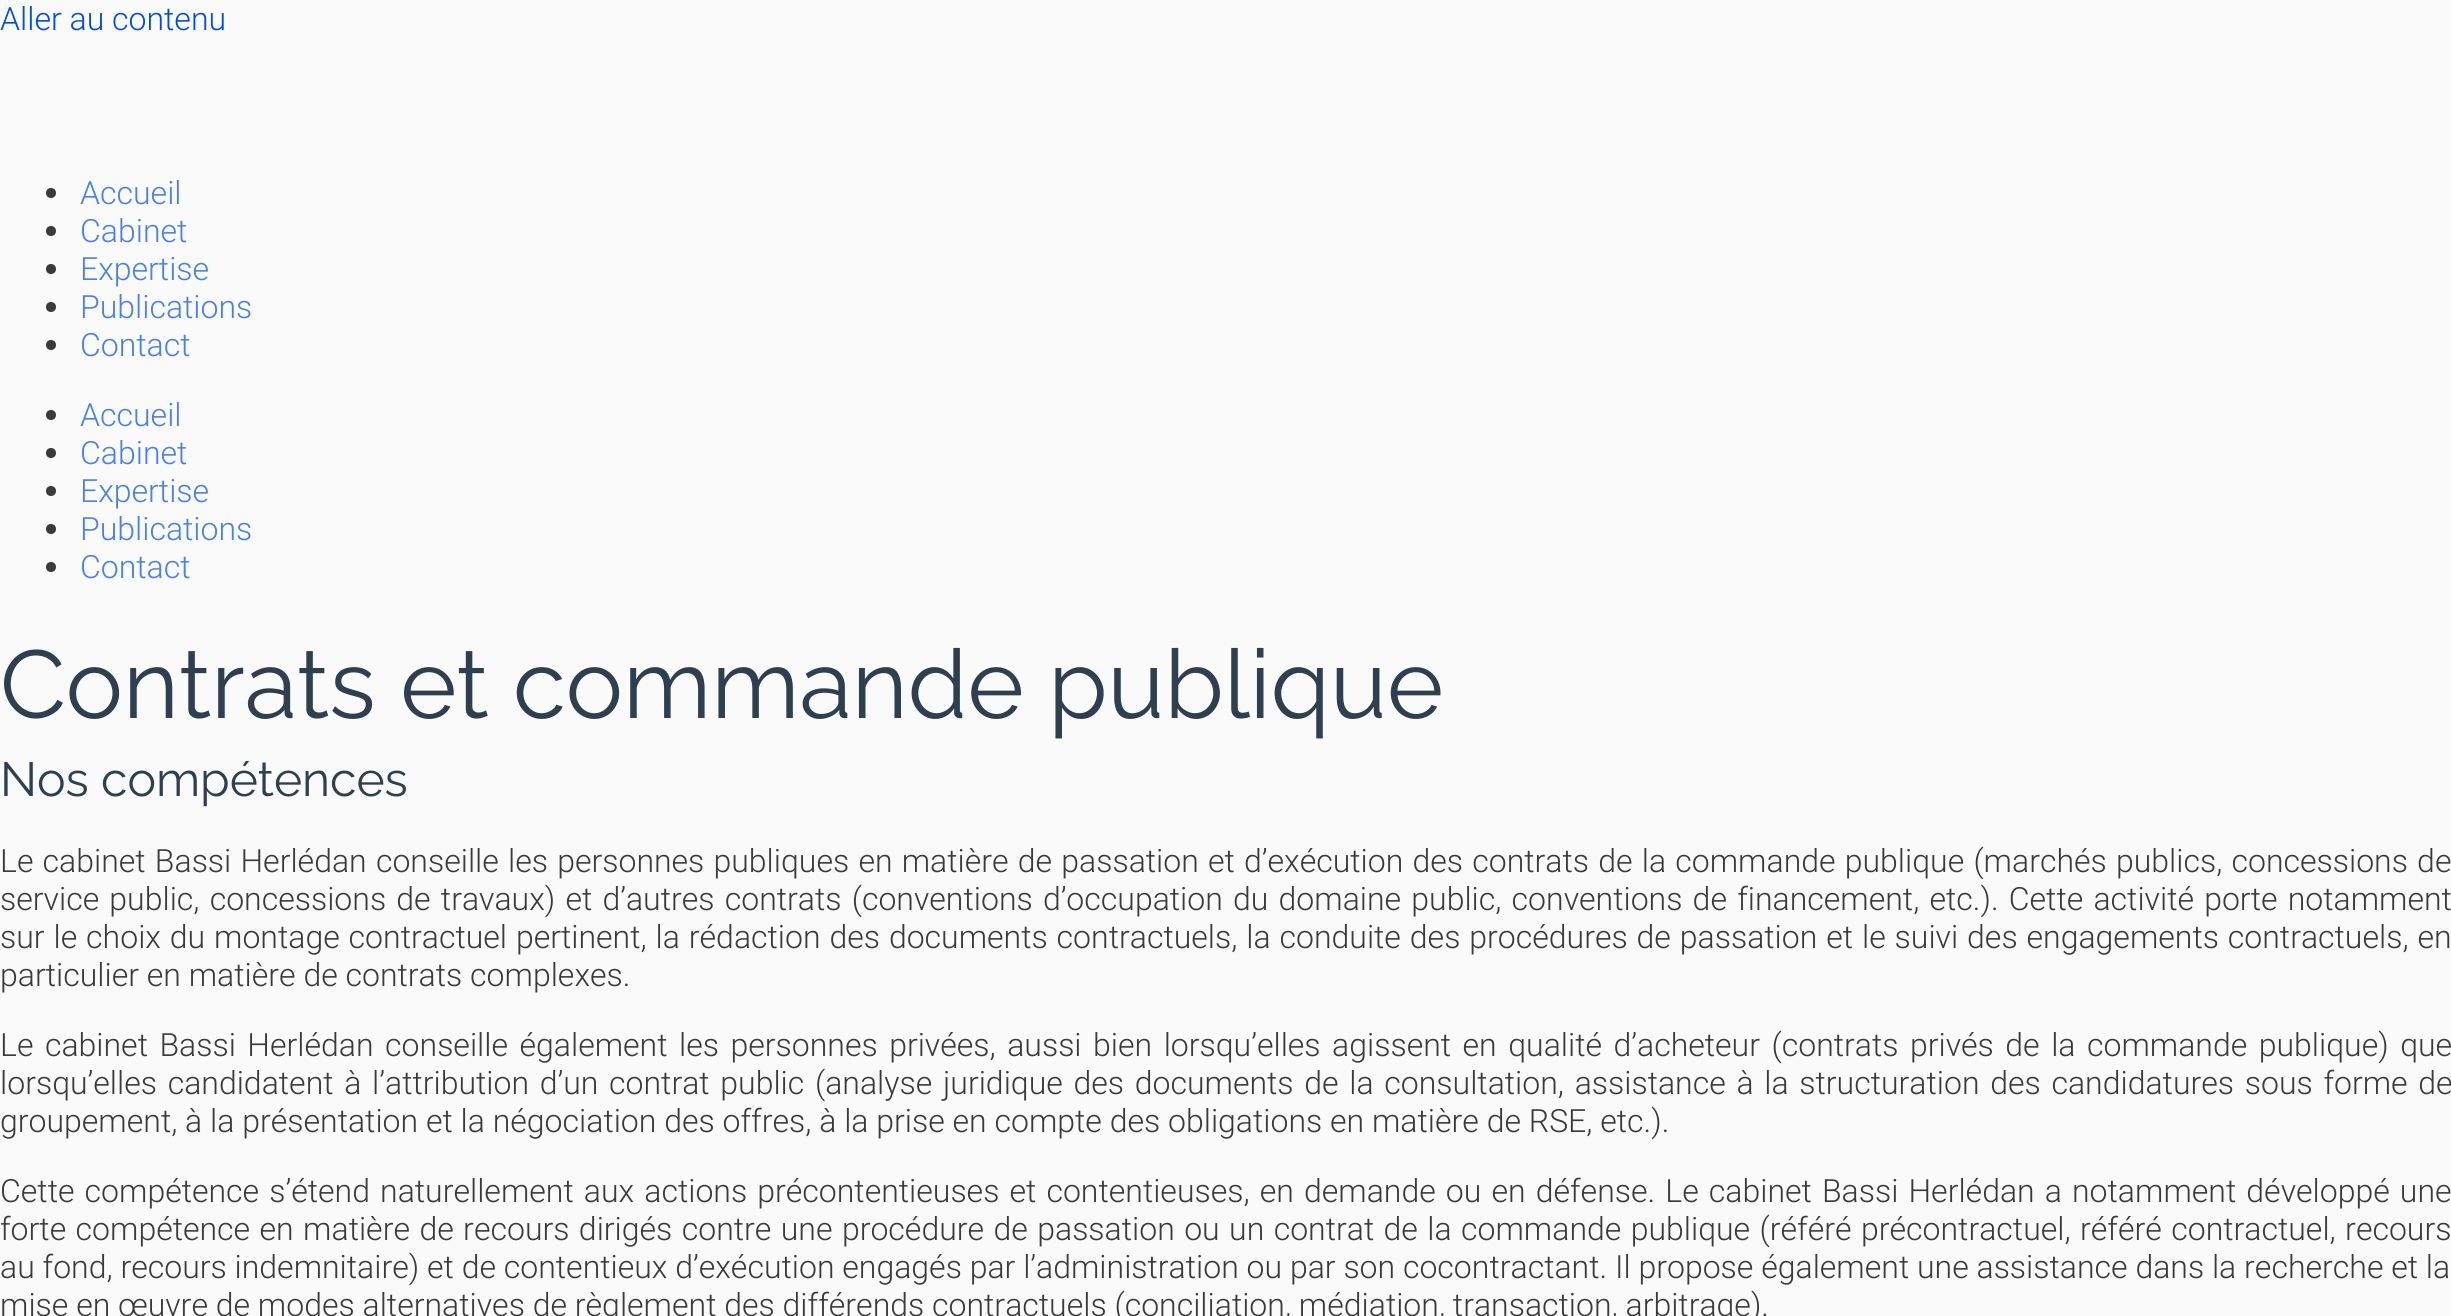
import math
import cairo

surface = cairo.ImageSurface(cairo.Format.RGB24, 2451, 1316)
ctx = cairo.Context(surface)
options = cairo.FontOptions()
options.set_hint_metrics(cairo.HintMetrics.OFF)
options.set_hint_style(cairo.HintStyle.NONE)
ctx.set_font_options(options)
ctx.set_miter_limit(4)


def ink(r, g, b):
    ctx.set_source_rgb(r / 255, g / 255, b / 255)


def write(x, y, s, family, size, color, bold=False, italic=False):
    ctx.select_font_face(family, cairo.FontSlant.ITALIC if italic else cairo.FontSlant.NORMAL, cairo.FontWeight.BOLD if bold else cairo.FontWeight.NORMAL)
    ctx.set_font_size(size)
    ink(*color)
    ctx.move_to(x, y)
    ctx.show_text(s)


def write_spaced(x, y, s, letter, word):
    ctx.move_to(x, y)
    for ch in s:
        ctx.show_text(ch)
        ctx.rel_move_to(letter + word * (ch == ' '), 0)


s1 = dict(family="Roboto Light", size=32, color=(0, 77, 229))
s2 = dict(family="Roboto Light", size=32, color=(74, 128, 236))
s3 = dict(family="Raleway", size=96, color=(47, 63, 80))
s4 = dict(family="Raleway", size=48, color=(47, 63, 80))
s5 = dict(family="Roboto Light", size=32, color=(58, 58, 58))

ink(250, 250, 250)
ctx.paint()
write(0, 30, "Aller au contenu", **s1)
ink(58, 58, 58)
ctx.new_path()
ctx.arc(51, 193, 5, 0, 2 * math.pi)
ctx.fill()
write(80, 204, "Accueil", **s2)
ink(58, 58, 58)
ctx.new_path()
ctx.arc(51, 231, 5, 0, 2 * math.pi)
ctx.fill()
write(80, 242, "Cabinet", **s2)
ink(58, 58, 58)
ctx.new_path()
ctx.arc(51, 269, 5, 0, 2 * math.pi)
ctx.fill()
write(80, 280, "Expertise", **s2)
ink(58, 58, 58)
ctx.new_path()
ctx.arc(51, 307, 5, 0, 2 * math.pi)
ctx.fill()
write(80, 318, "Publications", **s2)
ink(58, 58, 58)
ctx.new_path()
ctx.arc(51, 345, 5, 0, 2 * math.pi)
ctx.fill()
write(80, 356, "Contact", **s2)
ink(58, 58, 58)
ctx.new_path()
ctx.arc(51, 415, 5, 0, 2 * math.pi)
ctx.fill()
write(80, 426, "Accueil", **s2)
ink(58, 58, 58)
ctx.new_path()
ctx.arc(51, 453, 5, 0, 2 * math.pi)
ctx.fill()
write(80, 464, "Cabinet", **s2)
ink(58, 58, 58)
ctx.new_path()
ctx.arc(51, 491, 5, 0, 2 * math.pi)
ctx.fill()
write(80, 502, "Expertise", **s2)
ink(58, 58, 58)
ctx.new_path()
ctx.arc(51, 529, 5, 0, 2 * math.pi)
ctx.fill()
write(80, 540, "Publications", **s2)
ink(58, 58, 58)
ctx.new_path()
ctx.arc(51, 567, 5, 0, 2 * math.pi)
ctx.fill()
write(80, 578, "Contact", **s2)
write(0, 718, "Contrats et commande publique", **s3)
write(0, 796, "Nos compétences", **s4)
ctx.select_font_face("Roboto Light")
ctx.set_font_size(32)
ink(58, 58, 58)
write_spaced(0, 872, "Le cabinet Bassi Herlédan conseille les personnes publiques en matière de passation et d’exécution des contrats de la commande publique (marchés publics, concessions de", 0, 1.4)
write_spaced(0, 910, "service public, concessions de travaux) et d’autres contrats (conventions d’occupation du domaine public, conventions de financement, etc.). Cette activité porte notamment", 0, 2.4)
write_spaced(0, 948, "sur le choix du montage contractuel pertinent, la rédaction des documents contractuels, la conduite des procédures de passation et le suivi des engagements contractuels, en", 0, 1.1)
write(0, 986, "particulier en matière de contrats complexes.", **s5)
write_spaced(0, 1056, "Le cabinet Bassi Herlédan conseille également les personnes privées, aussi bien lorsqu’elles agissent en qualité d’acheteur (contrats privés de la commande publique) que", 0, 3.7)
write_spaced(0, 1094, "lorsqu’elles candidatent à l’attribution d’un contrat public (analyse juridique des documents de la consultation, assistance à la structuration des candidatures sous forme de", 0, 2.9)
write(0, 1132, "groupement, à la présentation et la négociation des offres, à la prise en compte des obligations en matière de RSE, etc.).", **s5)
write_spaced(0, 1202, "Cette compétence s’étend naturellement aux actions précontentieuses et contentieuses, en demande ou en défense. Le cabinet Bassi Herlédan a notamment développé une", 0, 2.3)
write_spaced(0, 1240, "forte compétence en matière de recours dirigés contre une procédure de passation ou un contrat de la commande publique (référé précontractuel, référé contractuel, recours", 0, 1.6)
write(0, 1278, "au fond, recours indemnitaire) et de contentieux d’exécution engagés par l’administration ou par son cocontractant. Il propose également une assistance dans la recherche et la", **s5)
write(0, 1316, "mise en œuvre de modes alternatives de règlement des différends contractuels (conciliation, médiation, transaction, arbitrage).", **s5)
surface.write_to_png("screenshot.png")
